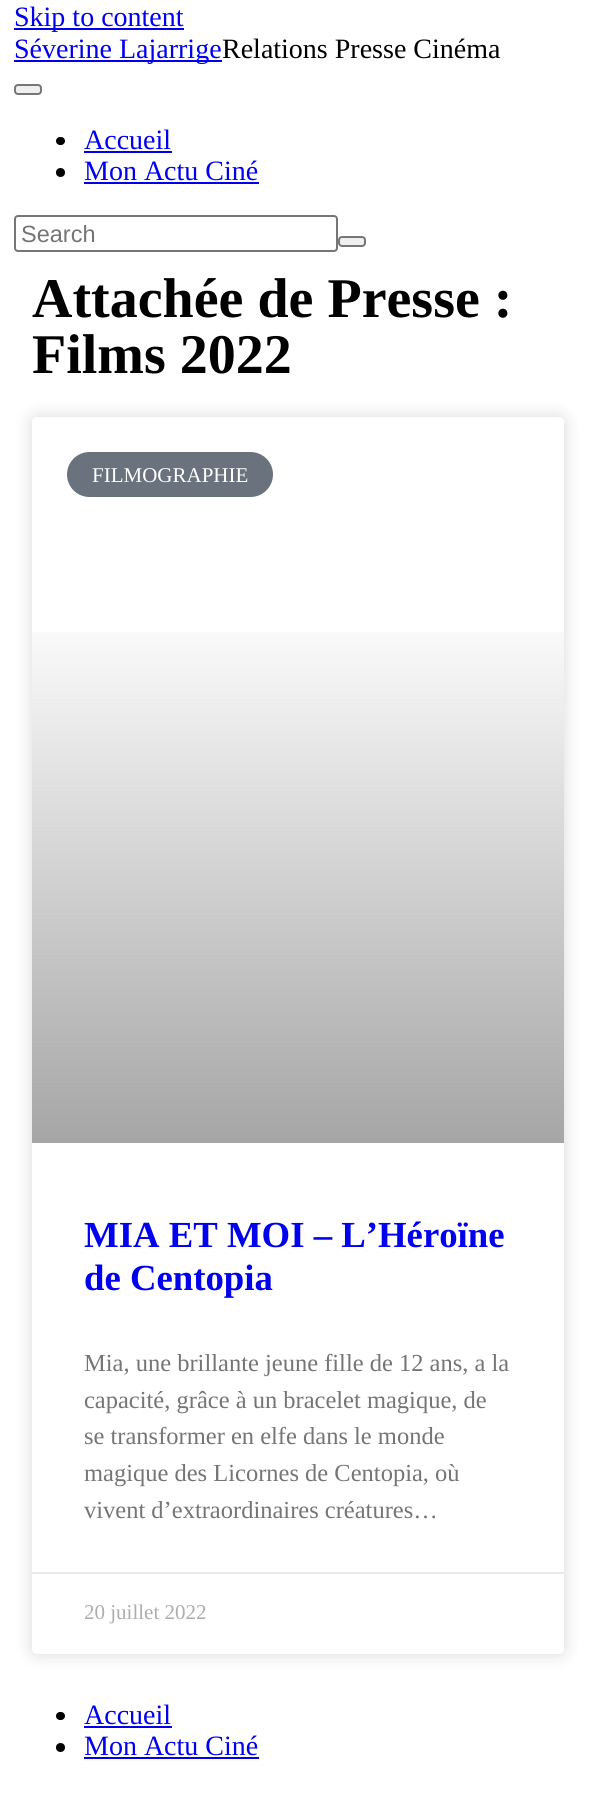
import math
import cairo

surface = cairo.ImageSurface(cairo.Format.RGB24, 594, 1795)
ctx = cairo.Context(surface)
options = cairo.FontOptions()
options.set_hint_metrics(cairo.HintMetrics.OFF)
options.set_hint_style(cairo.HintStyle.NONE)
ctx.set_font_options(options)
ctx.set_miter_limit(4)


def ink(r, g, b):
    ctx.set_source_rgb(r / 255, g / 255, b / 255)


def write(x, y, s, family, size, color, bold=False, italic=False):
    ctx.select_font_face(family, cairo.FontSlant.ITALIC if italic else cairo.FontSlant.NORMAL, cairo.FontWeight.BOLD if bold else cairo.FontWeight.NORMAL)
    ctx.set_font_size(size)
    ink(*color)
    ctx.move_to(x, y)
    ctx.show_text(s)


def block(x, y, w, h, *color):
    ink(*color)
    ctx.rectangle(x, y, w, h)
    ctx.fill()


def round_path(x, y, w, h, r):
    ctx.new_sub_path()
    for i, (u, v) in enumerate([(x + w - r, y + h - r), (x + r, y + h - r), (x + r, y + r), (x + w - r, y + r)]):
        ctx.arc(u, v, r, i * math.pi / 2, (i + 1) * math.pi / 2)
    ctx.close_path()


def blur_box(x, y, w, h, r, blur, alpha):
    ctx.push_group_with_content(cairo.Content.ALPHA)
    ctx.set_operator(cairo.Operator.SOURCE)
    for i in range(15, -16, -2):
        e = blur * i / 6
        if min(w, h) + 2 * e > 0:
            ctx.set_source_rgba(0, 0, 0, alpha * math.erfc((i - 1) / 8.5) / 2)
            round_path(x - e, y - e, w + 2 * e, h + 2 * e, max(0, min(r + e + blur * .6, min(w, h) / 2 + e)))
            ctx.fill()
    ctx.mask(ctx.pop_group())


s1 = dict(family="Liberation Serif", size=28, color=(0, 0, 238))
s2 = dict(family="Liberation Serif", size=28, color=(0, 0, 0))
s3 = dict(family="Liberation Sans", size=23.5, color=(117, 117, 117))
s4 = dict(family="Liberation Serif", size=56, color=(0, 0, 0), bold=True)
s5 = dict(family="Liberation Serif", size=21, color=(255, 255, 255))
s6 = dict(family="Liberation Serif", size=36.75, color=(0, 0, 238), bold=True)
s7 = dict(family="Liberation Serif", size=24.5, color=(117, 117, 117))
s8 = dict(family="Liberation Serif", size=21, color=(173, 173, 173))

ink(255, 255, 255)
ctx.paint()
block(14, 28, 170, 2, 0, 0, 238)
write(14, 26, "Skip to content", **s1)
block(14, 60, 208, 2, 0, 0, 238)
write(14, 58, "Séverine Lajarrige", **s1)
write(222, 58, "Relations Presse Cinéma", **s2)
ink(239, 239, 239)
round_path(15, 85, 26, 9, 3)
ctx.fill_preserve()
ink(118, 118, 118)
ctx.stroke()
ink(0, 0, 0)
round_path(56, 137, 9, 8, 4)
ctx.fill()
write(84, 149, "Accueil", **s1)
block(84, 151, 88, 2, 0, 0, 238)
ink(0, 0, 0)
ctx.new_path()
ctx.arc(60.5, 172.5, 4.5, 0, 2 * math.pi)
ctx.fill()
write(84, 180, "Mon Actu Ciné", **s1)
block(84, 182, 175, 2, 0, 0, 238)
round_path(15, 216, 322, 35, 3)
ink(118, 118, 118)
ctx.stroke()
write(21, 242, "Search", **s3)
ink(239, 239, 239)
round_path(339, 237, 26, 9, 3)
ctx.fill_preserve()
ink(118, 118, 118)
ctx.stroke()
write(32, 317, "Attachée de Presse :", **s4)
write(32, 373, "Films 2022", **s4)
ink(0, 0, 0)
blur_box(32, 417, 532, 1237, 5, 9, 0.15)
ink(255, 255, 255)
round_path(32, 417, 532, 1237, 5)
ctx.fill()
ink(105, 114, 125)
round_path(67, 452, 206, 45, 22.5)
ctx.fill()
write(92, 482, "FILMOGRAPHIE", **s5)
gradient = cairo.LinearGradient(298, 1143, 298, 417)
gradient.add_color_stop_rgba(0, 0, 0, 0, 0.35)
gradient.add_color_stop_rgba(0.75, 0, 0, 0, 0)
ctx.set_source(gradient)
ctx.rectangle(32, 632, 532, 511)
ctx.fill()
write(84, 1247, "MIA ET MOI – L’Héroïne", **s6)
write(84, 1290, "de Centopia", **s6)
write(84, 1371, "Mia, une brillante jeune fille de 12 ans, a la", **s7)
write(84, 1408, "capacité, grâce à un bracelet magique, de", **s7)
write(84, 1444, "se transformer en elfe dans le monde", **s7)
write(84, 1481, "magique des Licornes de Centopia, où", **s7)
write(84, 1518, "vivent d’extraordinaires créatures…", **s7)
block(32, 1572, 532, 2, 234, 234, 234)
write(84, 1619, "20 juillet 2022", **s8)
ink(0, 0, 0)
round_path(56, 1712, 9, 8, 4)
ctx.fill()
write(84, 1724, "Accueil", **s1)
block(84, 1726, 88, 2, 0, 0, 238)
ink(0, 0, 0)
ctx.new_path()
ctx.arc(60.5, 1747.5, 4.5, 0, 2 * math.pi)
ctx.fill()
write(84, 1755, "Mon Actu Ciné", **s1)
block(84, 1757, 175, 2, 0, 0, 238)
surface.write_to_png("screenshot.png")
